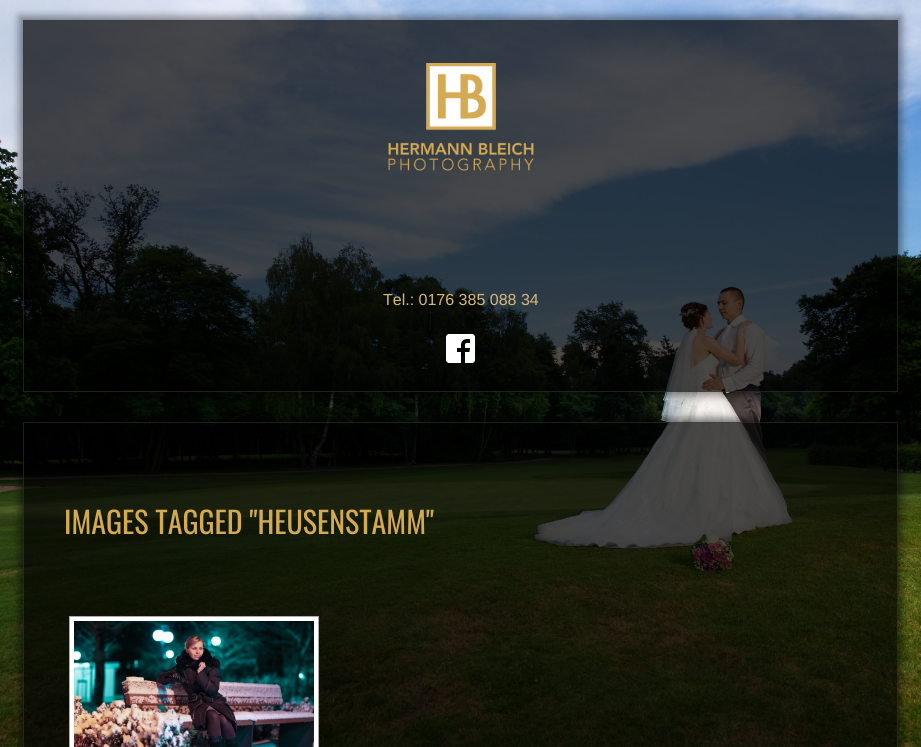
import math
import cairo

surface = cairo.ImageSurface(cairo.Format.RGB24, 921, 747)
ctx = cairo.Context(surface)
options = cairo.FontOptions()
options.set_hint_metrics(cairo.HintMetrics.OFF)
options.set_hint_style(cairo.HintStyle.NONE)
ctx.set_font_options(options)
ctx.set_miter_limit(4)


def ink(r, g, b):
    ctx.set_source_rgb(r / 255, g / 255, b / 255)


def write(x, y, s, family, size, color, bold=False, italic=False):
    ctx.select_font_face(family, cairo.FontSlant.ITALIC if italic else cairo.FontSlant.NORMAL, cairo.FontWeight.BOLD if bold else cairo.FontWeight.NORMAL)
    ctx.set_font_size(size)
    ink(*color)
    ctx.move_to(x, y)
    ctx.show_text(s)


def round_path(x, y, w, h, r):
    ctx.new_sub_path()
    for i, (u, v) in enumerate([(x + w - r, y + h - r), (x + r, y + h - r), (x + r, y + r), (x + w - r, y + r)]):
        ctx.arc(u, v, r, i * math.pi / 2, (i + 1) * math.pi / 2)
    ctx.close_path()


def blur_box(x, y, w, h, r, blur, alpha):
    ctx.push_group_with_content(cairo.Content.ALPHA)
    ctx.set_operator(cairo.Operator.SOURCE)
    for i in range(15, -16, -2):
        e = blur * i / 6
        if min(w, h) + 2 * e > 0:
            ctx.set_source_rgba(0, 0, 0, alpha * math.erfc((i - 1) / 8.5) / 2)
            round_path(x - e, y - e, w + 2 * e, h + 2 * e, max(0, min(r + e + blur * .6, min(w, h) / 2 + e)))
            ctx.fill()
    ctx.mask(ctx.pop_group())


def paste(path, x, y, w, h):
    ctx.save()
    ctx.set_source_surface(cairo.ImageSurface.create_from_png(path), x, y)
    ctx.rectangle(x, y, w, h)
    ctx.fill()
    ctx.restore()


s1 = dict(family="Liberation Sans", size=16, color=(213, 184, 126))
s2 = dict(family="Oswald", size=30, color=(212, 169, 84))

ink(255, 255, 255)
ctx.paint()
paste("pic1.png", 0, 0, 921, 747)
ctx.save()
ctx.set_fill_rule(cairo.FillRule.EVEN_ODD)
ctx.new_path()
ctx.move_to(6, 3)
ctx.line_to(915, 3)
ctx.line_to(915, 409)
ctx.line_to(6, 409)
ctx.close_path()
ctx.move_to(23, 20)
ctx.line_to(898, 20)
ctx.line_to(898, 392)
ctx.line_to(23, 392)
ctx.close_path()
ctx.clip()
ink(0, 0, 0)
blur_box(19, 16, 883, 380, 0, 4, 0.4)
ctx.restore()
ctx.set_source_rgba(0, 0, 0, 0.7)
ctx.rectangle(23, 20, 875, 372)
ctx.fill()
ctx.rectangle(23.5, 20.5, 874, 371)
ctx.set_source_rgba(0.235, 0.235, 0.235, 0.5)
ctx.set_line_width(1)
ctx.stroke()
paste("pic2.png", 388, 63, 146, 108)
write(383, 305, "Tel.: 0176 385 088 34", **s1)
paste("pic3.png", 446, 334, 29, 29)
ctx.save()
ctx.set_fill_rule(cairo.FillRule.EVEN_ODD)
ctx.new_path()
ctx.move_to(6, 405)
ctx.line_to(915, 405)
ctx.line_to(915, 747)
ctx.line_to(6, 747)
ctx.close_path()
ctx.move_to(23, 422)
ctx.line_to(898, 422)
ctx.line_to(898, 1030)
ctx.line_to(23, 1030)
ctx.close_path()
ctx.clip()
ink(0, 0, 0)
blur_box(19, 418, 883, 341, 0, 4, 0.5)
ctx.restore()
ctx.set_source_rgba(0, 0, 0, 0.7)
ctx.rectangle(23, 422, 875, 325)
ctx.fill()
ctx.rectangle(23.5, 422.5, 874, 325)
ctx.set_source_rgba(0.235, 0.235, 0.235, 0.5)
ctx.stroke()
write(64, 534, "IMAGES TAGGED \"HEUSENSTAMM\"", **s2)
ink(255, 255, 255)
ctx.rectangle(69.5, 616.5, 249, 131)
ctx.fill_preserve()
ink(169, 169, 169)
ctx.stroke()
paste("pic4.png", 74, 621, 240, 126)
surface.write_to_png("screenshot.png")
